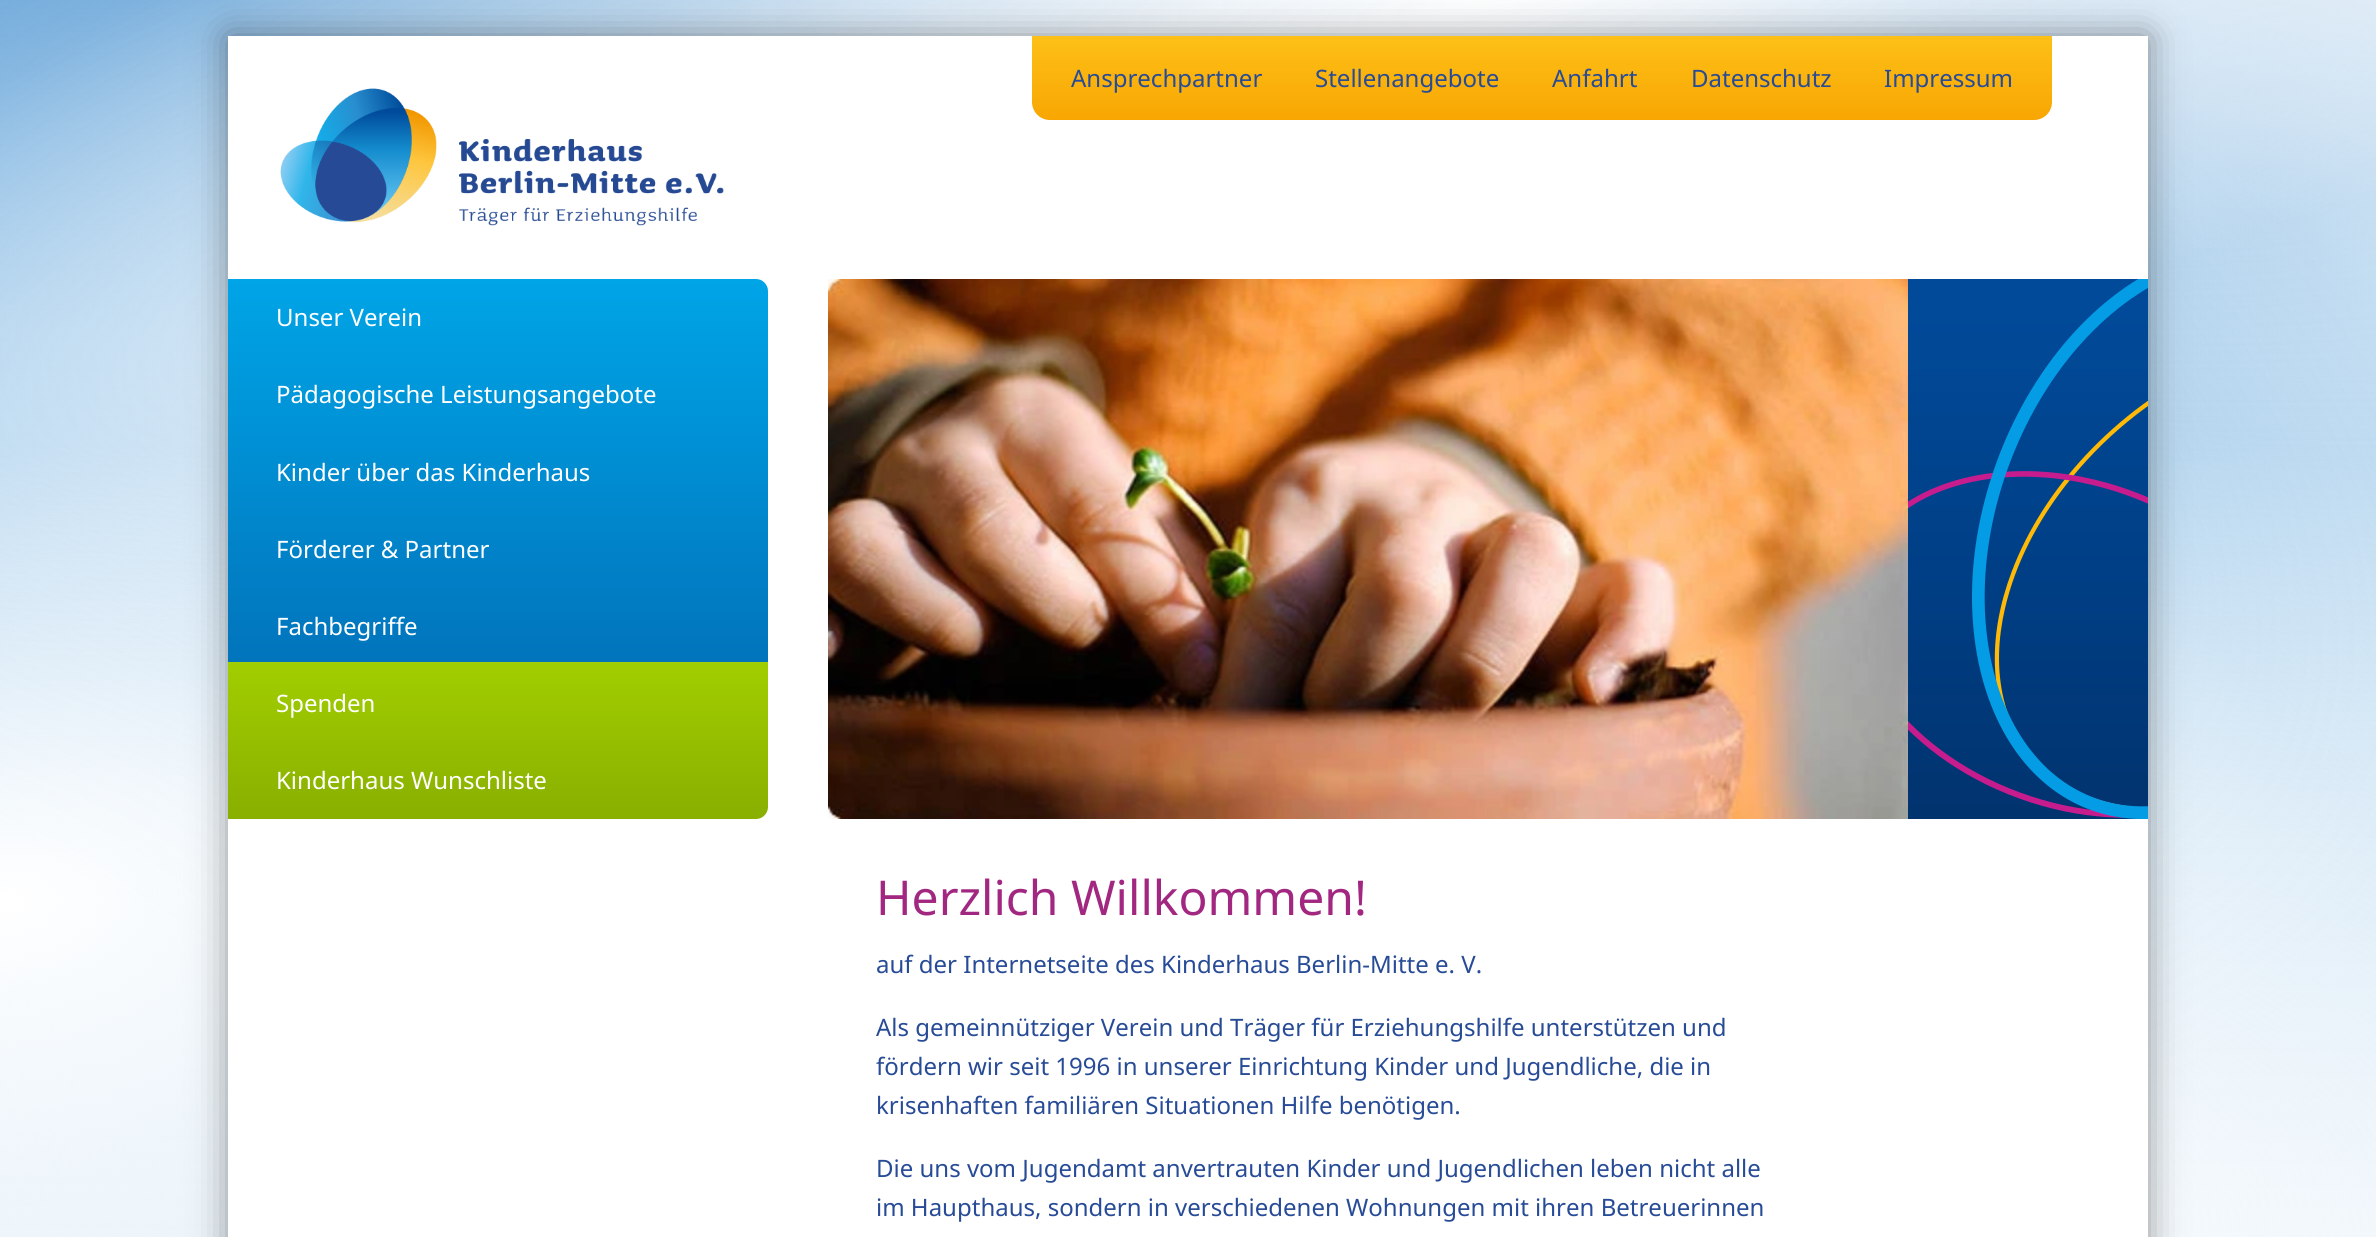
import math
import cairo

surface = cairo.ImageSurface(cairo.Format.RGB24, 2376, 1237)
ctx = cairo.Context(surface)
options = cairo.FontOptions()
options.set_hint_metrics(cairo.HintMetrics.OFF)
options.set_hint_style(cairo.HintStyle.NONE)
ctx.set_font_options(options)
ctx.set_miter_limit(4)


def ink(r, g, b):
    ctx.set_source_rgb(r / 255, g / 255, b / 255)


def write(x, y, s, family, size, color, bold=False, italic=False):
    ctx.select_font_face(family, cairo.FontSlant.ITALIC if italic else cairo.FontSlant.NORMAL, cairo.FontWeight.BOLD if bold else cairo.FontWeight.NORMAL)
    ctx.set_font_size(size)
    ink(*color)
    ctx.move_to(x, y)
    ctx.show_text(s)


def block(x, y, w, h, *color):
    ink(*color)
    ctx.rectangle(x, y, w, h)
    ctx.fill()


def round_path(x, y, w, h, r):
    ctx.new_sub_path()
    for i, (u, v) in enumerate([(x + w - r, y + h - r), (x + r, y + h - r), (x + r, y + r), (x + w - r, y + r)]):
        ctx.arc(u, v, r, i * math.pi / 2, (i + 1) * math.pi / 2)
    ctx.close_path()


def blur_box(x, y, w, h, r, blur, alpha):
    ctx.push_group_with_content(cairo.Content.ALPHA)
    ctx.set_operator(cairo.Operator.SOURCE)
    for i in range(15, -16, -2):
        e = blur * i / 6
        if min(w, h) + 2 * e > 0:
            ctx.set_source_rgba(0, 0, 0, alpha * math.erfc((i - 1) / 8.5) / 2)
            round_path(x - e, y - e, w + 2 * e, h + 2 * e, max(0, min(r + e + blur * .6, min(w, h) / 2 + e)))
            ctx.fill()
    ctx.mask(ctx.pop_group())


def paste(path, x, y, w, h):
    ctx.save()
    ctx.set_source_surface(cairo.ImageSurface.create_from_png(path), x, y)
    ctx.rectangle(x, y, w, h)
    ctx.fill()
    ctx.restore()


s1 = dict(family="Noto Sans", size=24, color=(39, 75, 150))
s2 = dict(family="Noto Sans", size=24, color=(255, 255, 255))
s3 = dict(family="Noto Sans", size=48, color=(162, 39, 129))

ink(255, 255, 255)
ctx.paint()
paste("pic1.png", 0, 0, 2376, 1237)
ink(0, 0, 0)
blur_box(228, 36, 1920, 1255, 0, 18, 0.4)
block(228, 36, 1920, 1201, 255, 255, 255)
gradient = cairo.LinearGradient(1542, 36, 1542, 120)
gradient.add_color_stop_rgba(0, 0.992, 0.753, 0.09, 1)
gradient.add_color_stop_rgba(1, 0.973, 0.651, 0.008, 1)
ctx.set_source(gradient)
ctx.new_path()
ctx.move_to(1032, 36)
ctx.line_to(2052, 36)
ctx.line_to(2052, 102)
ctx.curve_to(2052, 112, 2044, 120, 2034, 120)
ctx.line_to(1050, 120)
ctx.curve_to(1040, 120, 1032, 112, 1032, 102)
ctx.close_path()
ctx.fill()
write(1071, 87, "Ansprechpartner", **s1)
write(1315, 87, "Stellenangebote", **s1)
write(1552, 87, "Anfahrt", **s1)
write(1691, 87, "Datenschutz", **s1)
write(1884, 87, "Impressum", **s1)
paste("pic2.png", 280, 88, 444, 138)
gradient = cairo.LinearGradient(498, 279, 498, 819)
gradient.add_color_stop_rgba(0, 0, 0.647, 0.906, 1)
gradient.add_color_stop_rgba(0.71, 0.004, 0.455, 0.737, 1)
gradient.add_color_stop_rgba(0.71, 0.631, 0.808, 0, 1)
gradient.add_color_stop_rgba(1, 0.537, 0.686, 0, 1)
ctx.set_source(gradient)
ctx.new_path()
ctx.move_to(228, 279)
ctx.line_to(756, 279)
ctx.curve_to(762.5, 279, 768, 284.5, 768, 291)
ctx.line_to(768, 807)
ctx.curve_to(768, 813.5, 762.5, 819, 756, 819)
ctx.line_to(228, 819)
ctx.close_path()
ctx.fill()
write(276, 326, "Unser Verein", **s2)
write(276, 403, "Pädagogische Leistungsangebote", **s2)
write(276, 481, "Kinder über das Kinderhaus", **s2)
write(276, 558, "Förderer & Partner", **s2)
write(276, 635, "Fachbegriffe", **s2)
write(276, 712, "Spenden", **s2)
write(276, 789, "Kinderhaus Wunschliste", **s2)
paste("pic3.png", 1908, 279, 240, 540)
paste("pic4.png", 828, 279, 1080, 540)
write(876, 915, "Herzlich Willkommen!", **s3)
write(876, 973, "auf der Internetseite des Kinderhaus Berlin-Mitte e. V.", **s1)
write(876, 1036, "Als gemeinnütziger Verein und Träger für Erziehungshilfe unterstützen und", **s1)
write(876, 1075, "fördern wir seit 1996 in unserer Einrichtung Kinder und Jugendliche, die in", **s1)
write(876, 1114, "krisenhaften familiären Situationen Hilfe benötigen.", **s1)
write(876, 1177, "Die uns vom Jugendamt anvertrauten Kinder und Jugendlichen leben nicht alle", **s1)
write(876, 1216, "im Haupthaus, sondern in verschiedenen Wohnungen mit ihren Betreuerinnen", **s1)
surface.write_to_png("screenshot.png")
